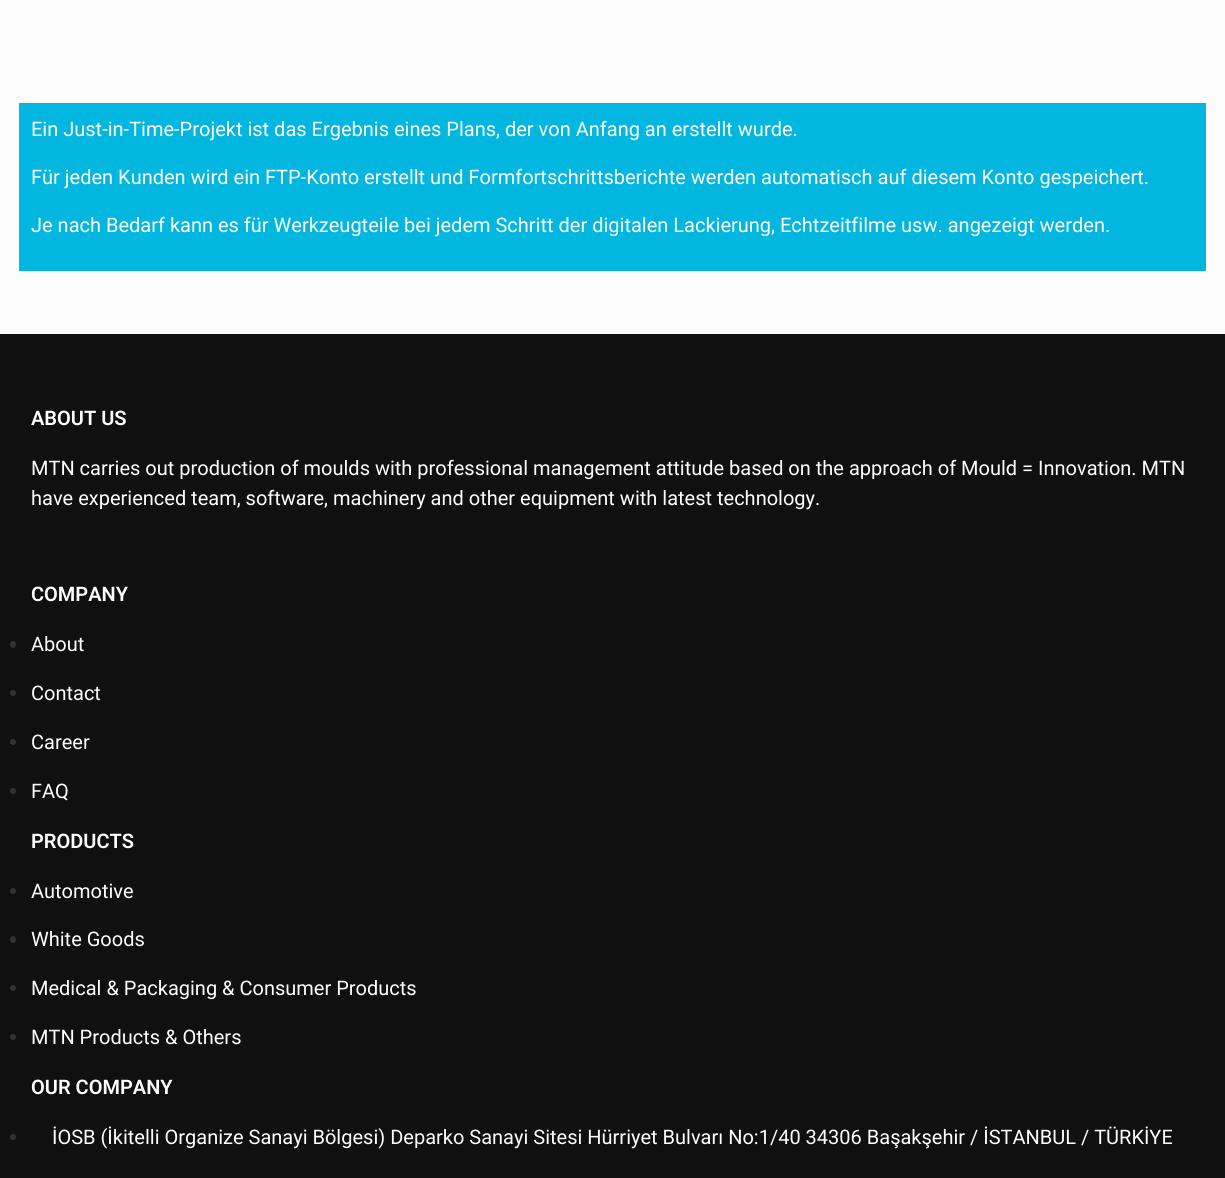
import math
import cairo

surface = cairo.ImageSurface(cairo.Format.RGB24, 1225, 1178)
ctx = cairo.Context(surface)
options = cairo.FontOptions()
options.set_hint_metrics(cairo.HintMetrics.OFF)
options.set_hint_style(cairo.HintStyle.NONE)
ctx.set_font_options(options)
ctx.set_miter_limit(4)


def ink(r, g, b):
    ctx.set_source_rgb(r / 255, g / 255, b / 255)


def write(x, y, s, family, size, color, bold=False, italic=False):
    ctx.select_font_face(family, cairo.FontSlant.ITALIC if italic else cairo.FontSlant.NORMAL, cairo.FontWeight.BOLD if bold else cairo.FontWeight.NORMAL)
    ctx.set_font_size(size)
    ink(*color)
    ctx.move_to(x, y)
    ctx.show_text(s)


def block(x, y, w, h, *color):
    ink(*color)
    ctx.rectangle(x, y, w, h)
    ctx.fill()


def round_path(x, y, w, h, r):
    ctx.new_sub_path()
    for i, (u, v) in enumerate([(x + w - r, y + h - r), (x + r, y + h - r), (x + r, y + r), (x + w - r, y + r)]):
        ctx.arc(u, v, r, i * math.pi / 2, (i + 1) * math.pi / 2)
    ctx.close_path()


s1 = dict(family="Roboto", size=20, color=(255, 255, 255))
s2 = dict(family="Roboto SemiBold", size=20, color=(255, 255, 255))

ink(252, 252, 252)
ctx.paint()
block(19, 103, 1187, 168, 1, 183, 223)
write(31, 136, "Ein Just-in-Time-Projekt ist das Ergebnis eines Plans, der von Anfang an erstellt wurde.", **s1)
write(31, 184, "Für jeden Kunden wird ein FTP-Konto erstellt und Formfortschrittsberichte werden automatisch auf diesem Konto gespeichert.", **s1)
write(31, 232, "Je nach Bedarf kann es für Werkzeugteile bei jedem Schritt der digitalen Lackierung, Echtzeitfilme usw. angezeigt werden.", **s1)
block(0, 334, 1225, 844, 16, 16, 16)
write(31, 425, "ABOUT US", **s2)
write(31, 475, "MTN carries out production of moulds with professional management attitude based on the approach of Mould = Innovation. MTN", **s1)
write(31, 505, "have experienced team, software, machinery and other equipment with latest technology.", **s1)
write(31, 601, "COMPANY", **s2)
ink(51, 51, 51)
round_path(10, 641, 6, 7, 3)
ctx.fill()
write(31, 651, "About", **s1)
ink(51, 51, 51)
ctx.new_path()
ctx.arc(13, 693, 3, 0, 2 * math.pi)
ctx.fill()
write(31, 700, "Contact", **s1)
ink(51, 51, 51)
ctx.new_path()
ctx.arc(13, 742, 3, 0, 2 * math.pi)
ctx.fill()
write(31, 749, "Career", **s1)
ink(51, 51, 51)
ctx.new_path()
ctx.arc(13, 791, 3, 0, 2 * math.pi)
ctx.fill()
write(31, 798, "FAQ", **s1)
write(31, 848, "PRODUCTS", **s2)
ink(51, 51, 51)
ctx.new_path()
ctx.arc(13, 891, 3, 0, 2 * math.pi)
ctx.fill()
write(31, 898, "Automotive", **s1)
ink(51, 51, 51)
round_path(10, 936, 6, 7, 3)
ctx.fill()
write(31, 946, "White Goods", **s1)
ink(51, 51, 51)
ctx.new_path()
ctx.arc(13, 988, 3, 0, 2 * math.pi)
ctx.fill()
write(31, 995, "Medical & Packaging & Consumer Products", **s1)
ink(51, 51, 51)
ctx.new_path()
ctx.arc(13, 1037, 3, 0, 2 * math.pi)
ctx.fill()
write(31, 1044, "MTN Products & Others", **s1)
write(31, 1094, "OUR COMPANY", **s2)
ink(51, 51, 51)
ctx.new_path()
ctx.arc(13, 1137, 3, 0, 2 * math.pi)
ctx.fill()
write(52, 1144, "İOSB (İkitelli Organize Sanayi Bölgesi) Deparko Sanayi Sitesi Hürriyet Bulvarı No:1/40 34306 Başakşehir / İSTANBUL / TÜRKİYE", **s1)
surface.write_to_png("screenshot.png")
